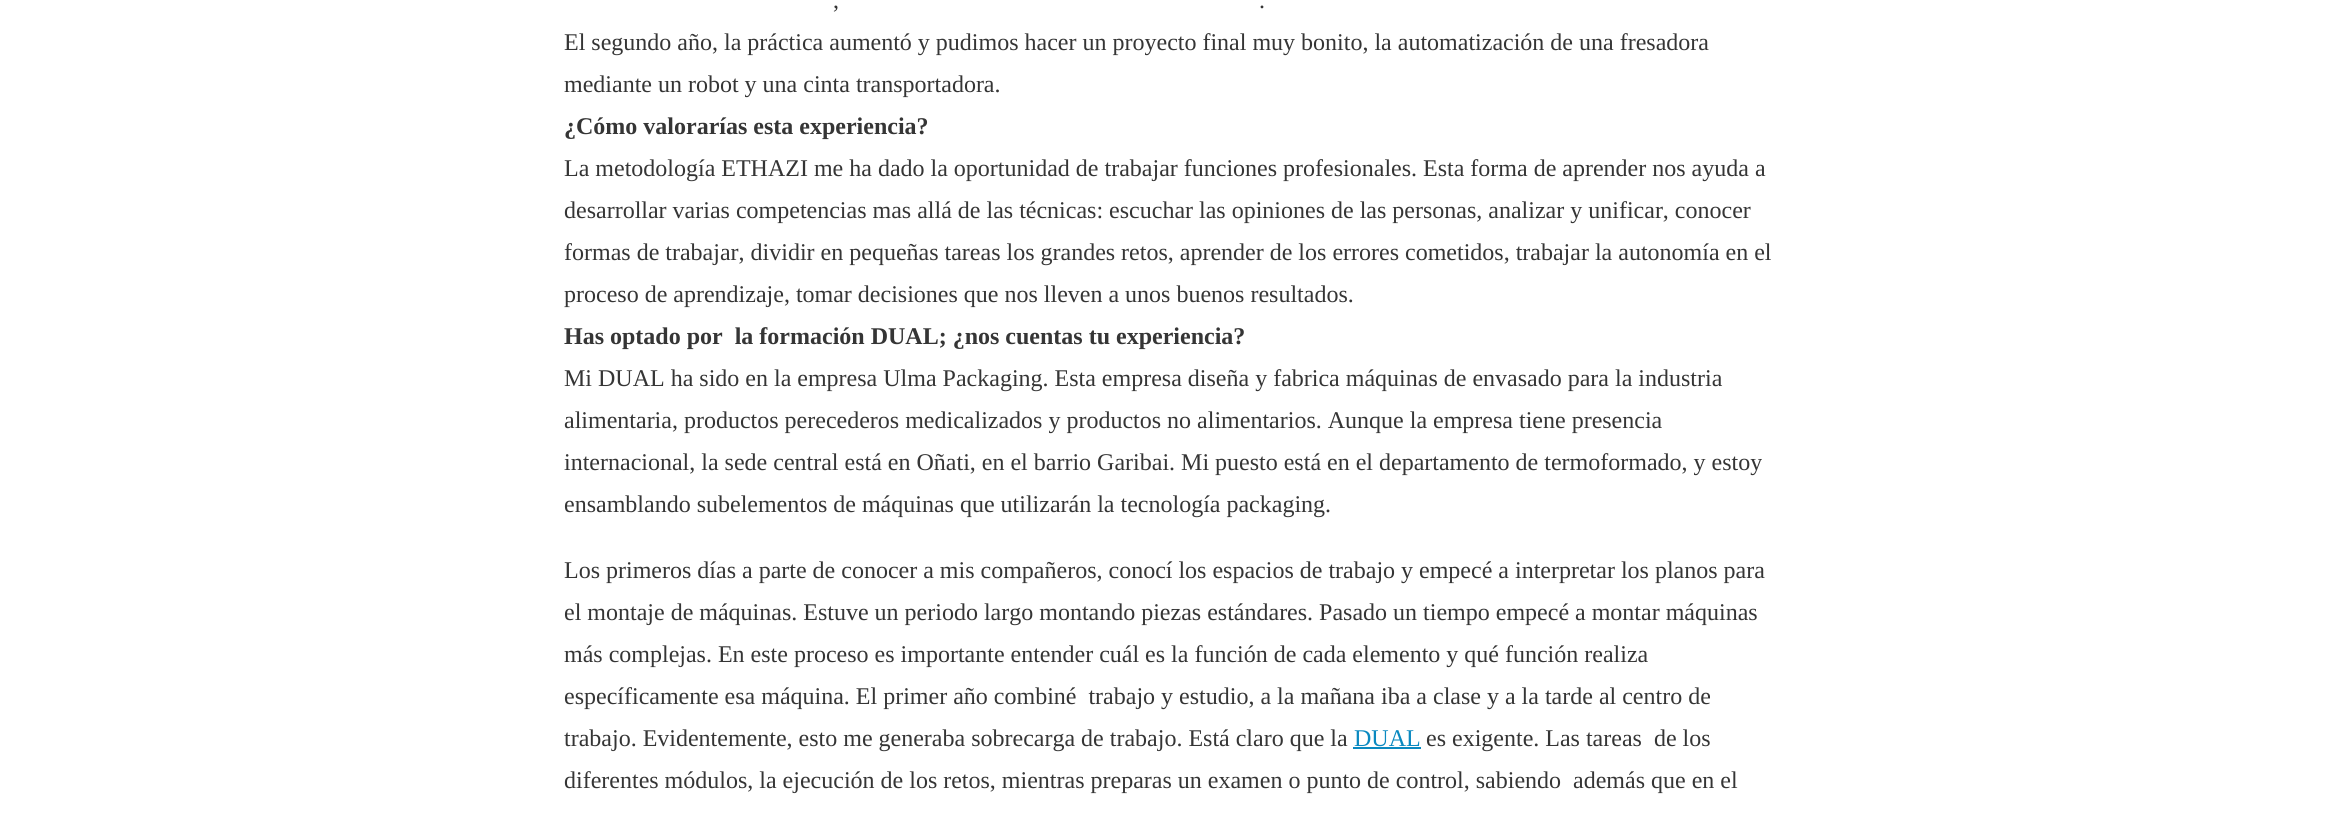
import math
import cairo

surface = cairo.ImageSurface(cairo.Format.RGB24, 2339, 818)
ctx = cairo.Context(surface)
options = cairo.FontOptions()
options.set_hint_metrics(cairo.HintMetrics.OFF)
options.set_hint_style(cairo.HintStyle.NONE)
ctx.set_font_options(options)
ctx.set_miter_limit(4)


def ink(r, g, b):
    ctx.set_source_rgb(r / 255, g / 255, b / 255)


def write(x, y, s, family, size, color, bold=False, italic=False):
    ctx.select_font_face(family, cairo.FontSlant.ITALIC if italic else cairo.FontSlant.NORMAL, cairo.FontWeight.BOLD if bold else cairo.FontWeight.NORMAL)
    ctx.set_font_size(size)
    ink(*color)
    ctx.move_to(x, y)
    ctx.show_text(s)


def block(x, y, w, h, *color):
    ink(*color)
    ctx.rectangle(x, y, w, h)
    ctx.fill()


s1 = dict(family="Liberation Serif", size=24, color=(53, 53, 53))
s2 = dict(family="Liberation Serif", size=24, color=(53, 53, 53), bold=True)
s3 = dict(family="Liberation Serif", size=24, color=(10, 137, 192))

ink(255, 255, 255)
ctx.paint()
write(833, 8, ",", **s1)
write(1259, 8, ".", **s1)
write(564, 50, "El segundo año, la práctica aumentó y pudimos hacer un proyecto final muy bonito, la automatización de una fresadora", **s1)
write(564, 92, "mediante un robot y una cinta transportadora.", **s1)
write(564, 134, "¿Cómo valorarías esta experiencia?", **s2)
write(564, 176, "La metodología ETHAZI me ha dado la oportunidad de trabajar funciones profesionales. Esta forma de aprender nos ayuda a", **s1)
write(564, 218, "desarrollar varias competencias mas allá de las técnicas: escuchar las opiniones de las personas, analizar y unificar, conocer", **s1)
write(564, 260, "formas de trabajar, dividir en pequeñas tareas los grandes retos, aprender de los errores cometidos, trabajar la autonomía en el", **s1)
write(564, 302, "proceso de aprendizaje, tomar decisiones que nos lleven a unos buenos resultados.", **s1)
write(564, 344, "Has optado por  la formación DUAL; ¿nos cuentas tu experiencia?", **s2)
write(564, 386, "Mi DUAL ha sido en la empresa Ulma Packaging. Esta empresa diseña y fabrica máquinas de envasado para la industria", **s1)
write(564, 428, "alimentaria, productos perecederos medicalizados y productos no alimentarios. Aunque la empresa tiene presencia", **s1)
write(564, 470, "internacional, la sede central está en Oñati, en el barrio Garibai. Mi puesto está en el departamento de termoformado, y estoy", **s1)
write(564, 512, "ensamblando subelementos de máquinas que utilizarán la tecnología packaging.", **s1)
write(564, 578, "Los primeros días a parte de conocer a mis compañeros, conocí los espacios de trabajo y empecé a interpretar los planos para", **s1)
write(564, 620, "el montaje de máquinas. Estuve un periodo largo montando piezas estándares. Pasado un tiempo empecé a montar máquinas", **s1)
write(564, 662, "más complejas. En este proceso es importante entender cuál es la función de cada elemento y qué función realiza", **s1)
write(564, 704, "específicamente esa máquina. El primer año combiné  trabajo y estudio, a la mañana iba a clase y a la tarde al centro de", **s1)
write(564, 746, "trabajo. Evidentemente, esto me generaba sobrecarga de trabajo. Está claro que la", **s1)
write(1354, 746, "DUAL", **s3)
block(1353, 747, 68, 2, 10, 137, 192)
write(1426, 746, "es exigente. Las tareas  de los", **s1)
write(564, 788, "diferentes módulos, la ejecución de los retos, mientras preparas un examen o punto de control, sabiendo  además que en el", **s1)
surface.write_to_png("screenshot.png")
